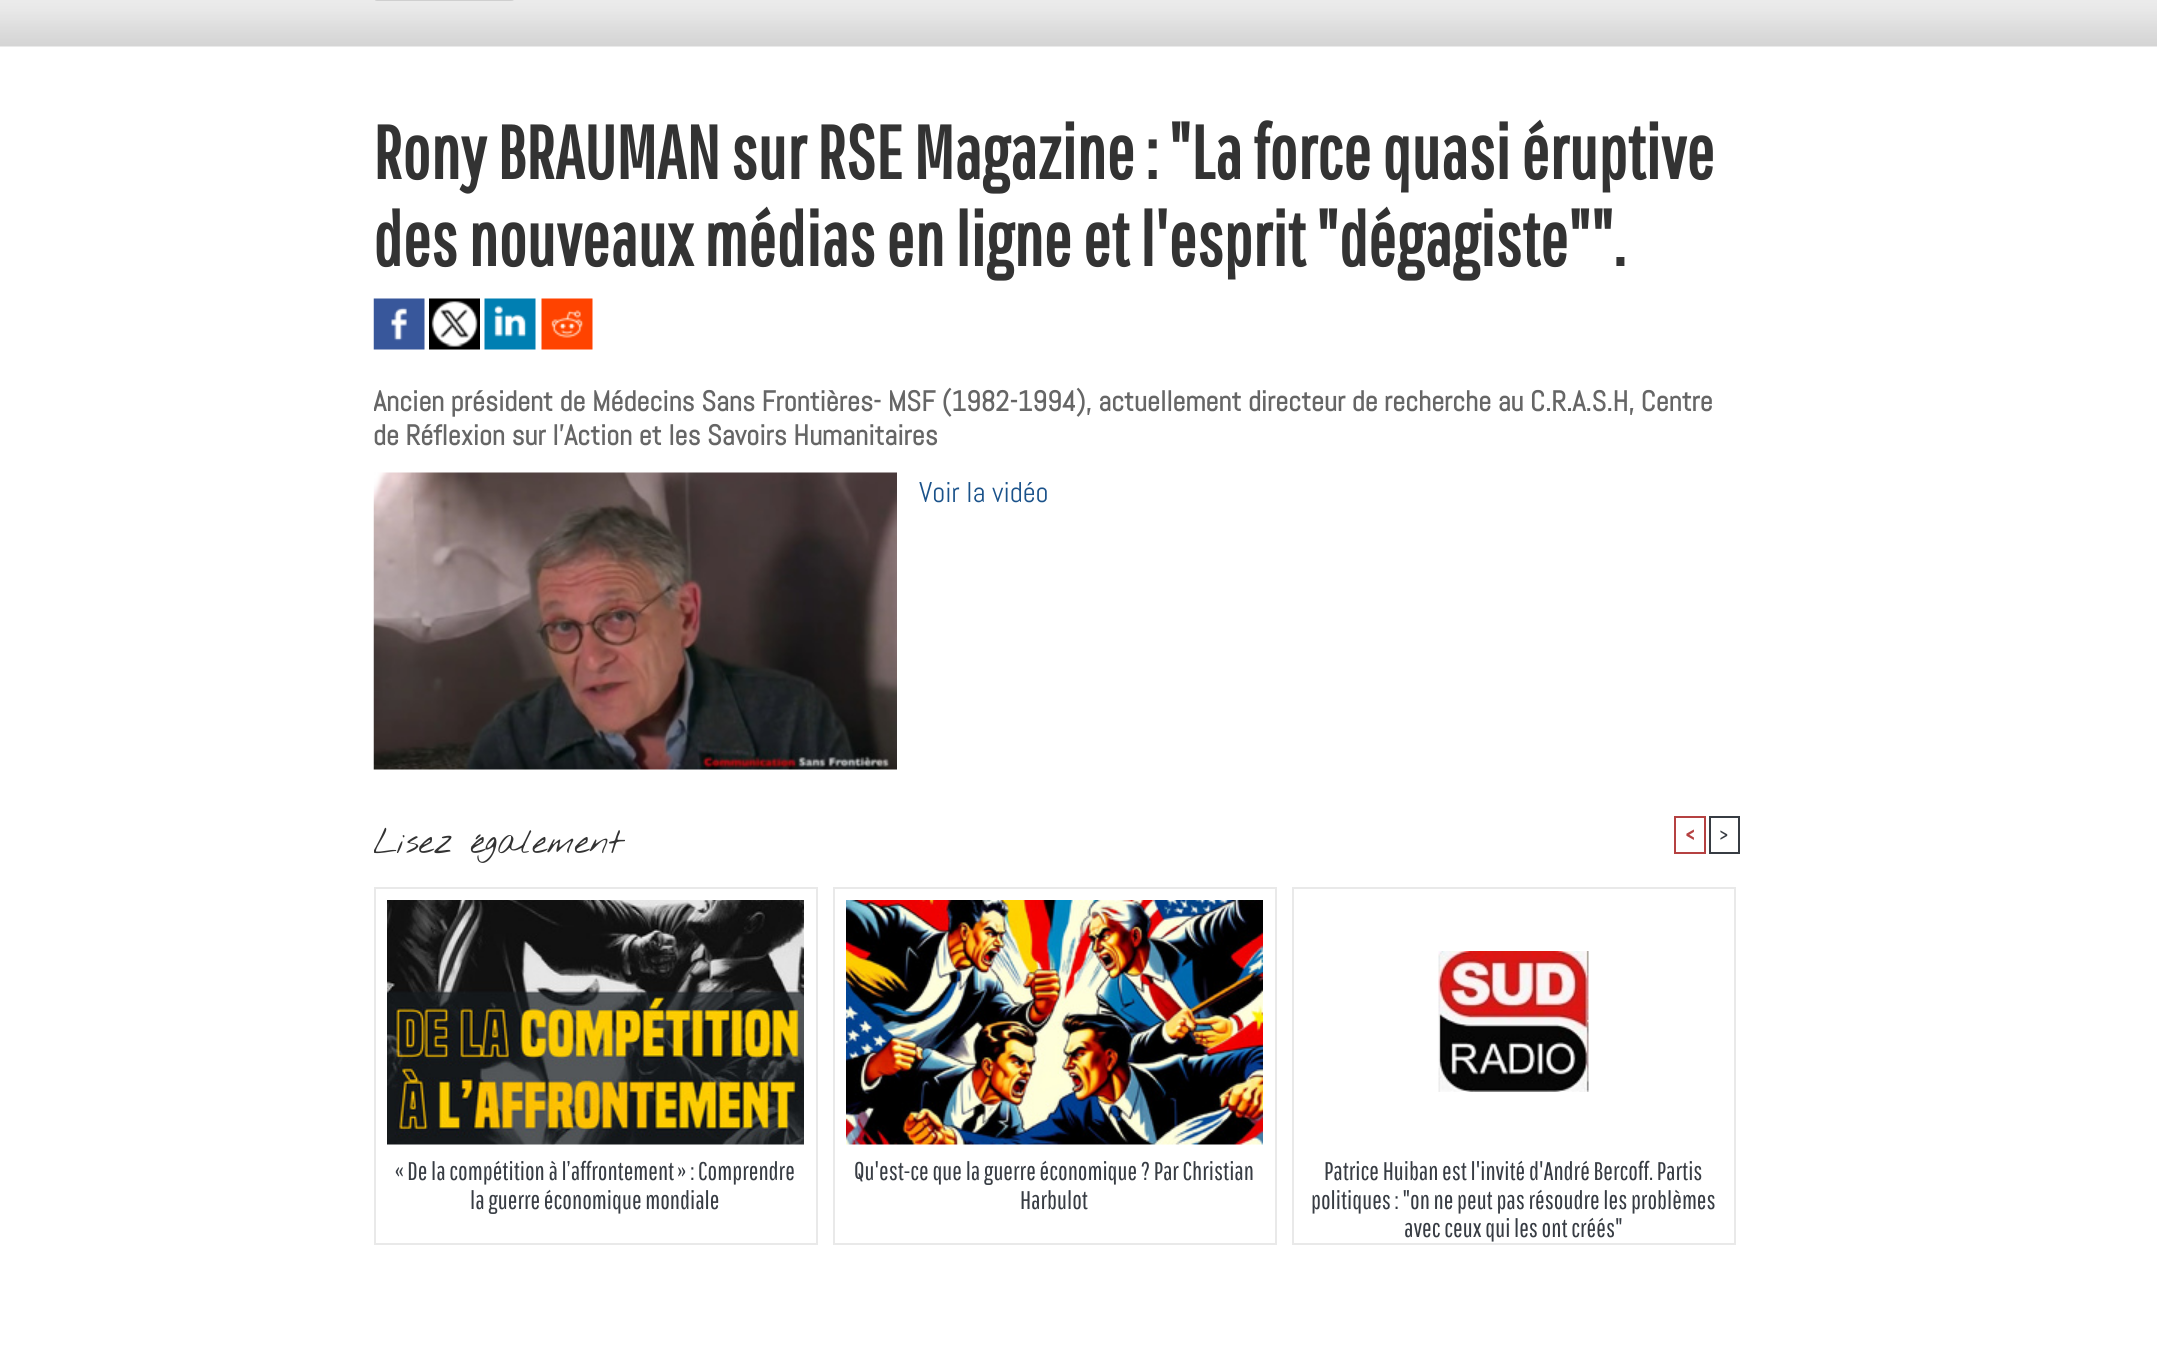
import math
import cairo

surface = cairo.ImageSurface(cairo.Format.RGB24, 2157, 1348)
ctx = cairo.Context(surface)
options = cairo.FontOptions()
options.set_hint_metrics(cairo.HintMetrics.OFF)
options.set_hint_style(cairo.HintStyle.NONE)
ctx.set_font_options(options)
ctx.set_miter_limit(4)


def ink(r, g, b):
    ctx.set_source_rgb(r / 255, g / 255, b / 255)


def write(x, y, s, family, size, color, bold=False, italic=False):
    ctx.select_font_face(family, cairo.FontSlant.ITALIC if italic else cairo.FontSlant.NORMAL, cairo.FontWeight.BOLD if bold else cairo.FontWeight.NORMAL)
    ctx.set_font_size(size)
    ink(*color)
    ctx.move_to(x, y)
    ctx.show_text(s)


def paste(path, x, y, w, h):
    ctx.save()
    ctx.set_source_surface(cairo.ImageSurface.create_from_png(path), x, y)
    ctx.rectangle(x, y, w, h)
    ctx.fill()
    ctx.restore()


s1 = dict(family="Pathway Gothic One", size=75, color=(51, 51, 51), bold=True)
s2 = dict(family="Abel", size=28.5, color=(102, 102, 102), bold=True)
s3 = dict(family="Abel", size=28.5, color=(26, 82, 138))
s4 = dict(family="Nothing You Could Do Thin", size=34.5, color=(51, 51, 51))
s5 = dict(family="Pathway Gothic One", size=25.5, color=(181, 65, 65), bold=True)
s6 = dict(family="Pathway Gothic One", size=25.5, color=(55, 60, 67))

ink(255, 255, 255)
ctx.paint()
paste("pic1.png", 0, 0, 2157, 47)
paste("pic2.png", 375, 0, 139, 1)
write(373, 179, "Rony BRAUMAN sur RSE Magazine : \"La force quasi éruptive", **s1)
write(373, 266, "des nouveaux médias en ligne et l'esprit \"dégagiste\"\".", **s1)
paste("pic3.png", 373, 298, 52, 52)
paste("pic4.png", 429, 298, 51, 52)
paste("pic5.png", 484, 298, 52, 52)
paste("pic6.png", 541, 298, 52, 52)
ctx.save()
ctx.rectangle(374, 47, 1411, 1281)
ctx.clip()
write(373, 411, "Ancien président de Médecins Sans Frontières- MSF (1982-1994), actuellement directeur de recherche au C.R.A.S.H, Centre", **s2)
ctx.restore()
write(373, 445, "de Réflexion sur l'Action et les Savoirs Humanitaires", **s2)
paste("pic7.png", 373, 472, 524, 298)
write(919, 502, "Voir la vidéo", **s3)
ctx.save()
ctx.rectangle(374, 47, 1411, 1281)
ctx.clip()
write(373, 853, "Lisez également", **s4)
ctx.restore()
ctx.rectangle(1675, 817, 30, 36)
ink(181, 65, 65)
ctx.stroke()
write(1685, 844, "<", **s5)
ctx.rectangle(1710, 817, 29, 36)
ink(55, 60, 67)
ctx.stroke()
write(1719, 844, ">", **s6)
ctx.rectangle(375, 888, 442, 356)
ink(233, 233, 233)
ctx.stroke()
paste("pic8.png", 387, 900, 417, 245)
write(395, 1180, "« De la compétition à l’affrontement » : Comprendre", **s6)
write(470, 1209, "la guerre économique mondiale", **s6)
ctx.rectangle(834, 888, 442, 356)
ink(233, 233, 233)
ctx.stroke()
paste("pic9.png", 846, 900, 417, 245)
write(854, 1180, "Qu'est-ce que la guerre économique ? Par Christian", **s6)
write(1020, 1209, "Harbulot", **s6)
ctx.rectangle(1293, 888, 442, 356)
ink(233, 233, 233)
ctx.stroke()
paste("pic10.png", 1438, 951, 151, 141)
write(1324, 1180, "Patrice Huiban est l'invité d'André Bercoff. Partis", **s6)
write(1311, 1209, "politiques : \"on ne peut pas résoudre les problèmes", **s6)
write(1404, 1237, "avec ceux qui les ont créés\"", **s6)
surface.write_to_png("screenshot.png")
